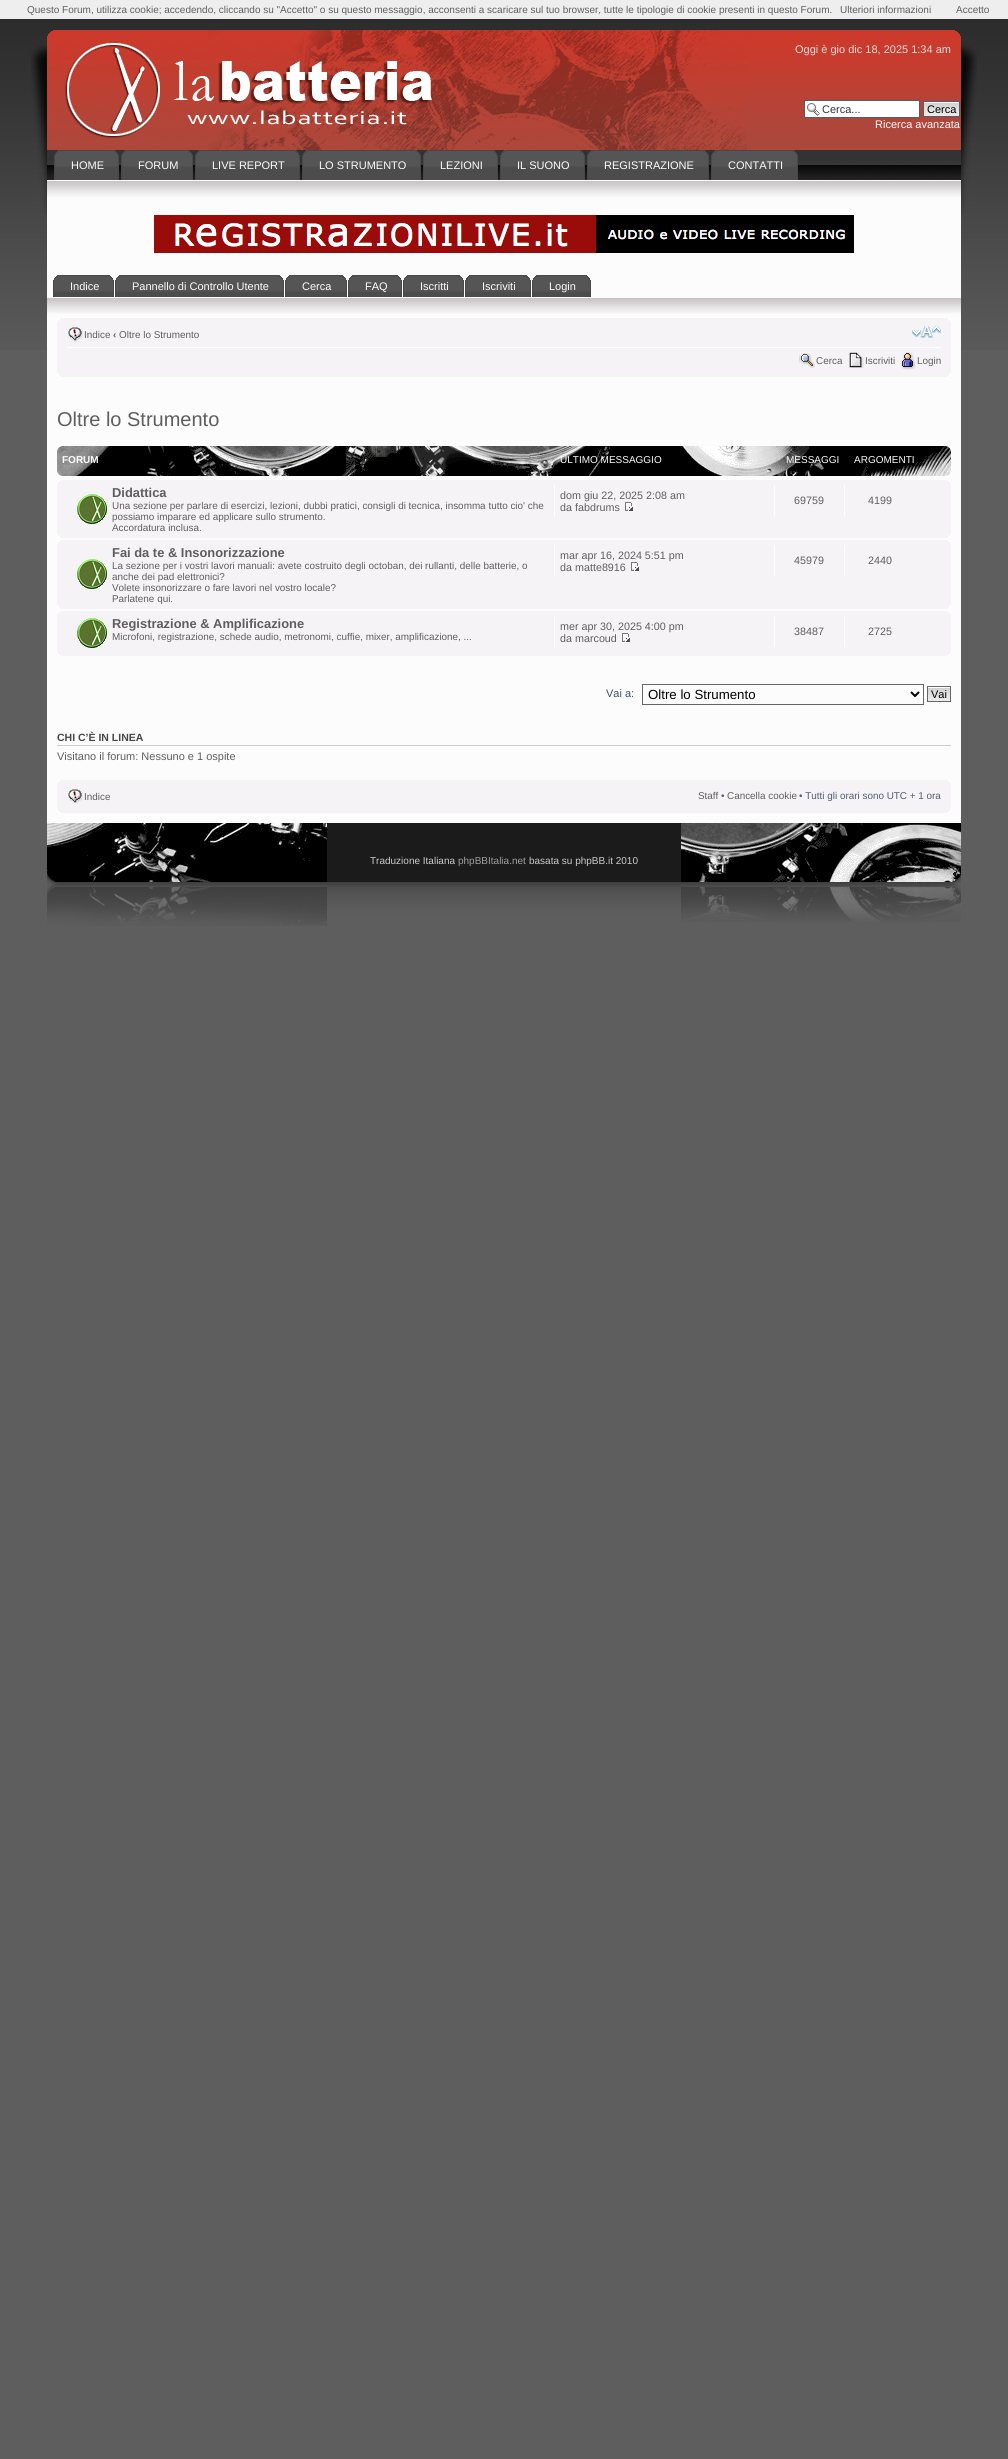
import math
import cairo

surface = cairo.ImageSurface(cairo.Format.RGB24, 1008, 2459)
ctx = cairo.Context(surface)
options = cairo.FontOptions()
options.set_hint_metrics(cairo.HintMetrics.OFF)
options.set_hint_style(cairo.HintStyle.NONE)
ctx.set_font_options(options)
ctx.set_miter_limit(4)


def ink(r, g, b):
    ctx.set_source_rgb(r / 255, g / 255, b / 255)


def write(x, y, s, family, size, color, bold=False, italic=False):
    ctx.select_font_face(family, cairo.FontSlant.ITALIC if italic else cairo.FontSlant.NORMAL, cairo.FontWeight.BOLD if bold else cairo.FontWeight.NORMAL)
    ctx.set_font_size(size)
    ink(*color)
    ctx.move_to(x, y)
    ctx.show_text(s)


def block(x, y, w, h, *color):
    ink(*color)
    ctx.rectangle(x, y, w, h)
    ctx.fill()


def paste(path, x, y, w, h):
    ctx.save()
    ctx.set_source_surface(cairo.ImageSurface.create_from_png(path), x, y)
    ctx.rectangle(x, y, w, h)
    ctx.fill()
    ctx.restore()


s1 = dict(family="Liberation Sans", size=10, color=(95, 94, 94))
s2 = dict(family="Liberation Sans", size=11, color=(221, 221, 221))
s3 = dict(family="Liberation Sans", size=11, color=(51, 51, 51))
s4 = dict(family="Liberation Sans", size=11, color=(0, 0, 0))
s5 = dict(family="Liberation Sans", size=11, color=(252, 252, 252))
s6 = dict(family="Liberation Sans", size=9.9, color=(95, 94, 94))
s7 = dict(family="Liberation Sans", size=9.9, color=(95, 94, 94), bold=True)
s8 = dict(family="Liberation Sans", size=20, color=(95, 94, 94))
s9 = dict(family="Liberation Sans", size=10, color=(252, 252, 252), bold=True)
s10 = dict(family="Liberation Sans", size=10, color=(252, 252, 252))
s11 = dict(family="Liberation Sans", size=12.9, color=(95, 94, 94), bold=True)
s12 = dict(family="Liberation Sans", size=10.75, color=(95, 94, 94))
s13 = dict(family="Liberation Sans", size=11, color=(66, 80, 103))
s14 = dict(family="Liberation Sans", size=13.25, color=(0, 0, 0))
s15 = dict(family="Liberation Sans", size=10.5, color=(70, 70, 70), bold=True)
s16 = dict(family="Liberation Sans", size=11, color=(95, 94, 94))
s17 = dict(family="Liberation Sans", size=9.9, color=(76, 93, 119))
s18 = dict(family="Liberation Sans", size=10, color=(204, 204, 204))
s19 = dict(family="Liberation Sans", size=10, color=(160, 160, 160))

ink(95, 94, 94)
ctx.paint()
paste("pic1.png", 0, 19, 1008, 331)
block(0, 0, 1008, 19, 238, 238, 238)
write(27, 13, "Questo Forum, utilizza cookie; accedendo, cliccando su \"Accetto\" o su questo messaggio, acconsenti a scaricare sul tuo browser, tutte le tipologie di cookie presenti in questo Forum.", **s1)
write(840, 13, "Ulteriori informazioni", **s1)
write(956, 13, "Accetto", **s1)
paste("pic2.png", 31, 45, 16, 170)
paste("pic3.png", 961, 45, 16, 170)
paste("pic4.png", 747, 30, 214, 120)
paste("pic5.png", 955, 30, 6, 6)
paste("pic6.png", 47, 30, 700, 120)
write(795, 53, "Oggi è gio dic 18, 2025 1:34 am", **s2)
block(805, 101, 114, 16, 255, 255, 255)
paste("pic7.png", 807, 103, 13, 13)
ctx.rectangle(804.5, 100.5, 115, 17)
ink(82, 94, 103)
ctx.set_line_width(1)
ctx.stroke()
write(822, 113, "Cerca...", **s3)
paste("pic8.png", 924, 102, 35, 14)
ctx.rectangle(923.5, 101.5, 36, 15)
ink(82, 94, 103)
ctx.stroke()
write(927, 113, "Cerca", **s4)
write(875, 128, "Ricerca avanzata", **s5)
paste("pic9.png", 47, 150, 914, 30)
paste("pic10.png", 54, 150, 10, 30)
paste("pic11.png", 64, 150, 55, 30)
write(71, 169, "HOME", **s5)
paste("pic10.png", 121, 150, 10, 30)
paste("pic12.png", 131, 150, 62, 30)
write(138, 169, "FORUM", **s5)
paste("pic10.png", 195, 150, 10, 30)
paste("pic13.png", 205, 150, 95, 30)
write(212, 169, "LIVE REPORT", **s5)
paste("pic10.png", 302, 150, 10, 30)
paste("pic14.png", 312, 150, 109, 30)
write(319, 169, "LO STRUMENTO", **s5)
paste("pic10.png", 423, 150, 10, 30)
paste("pic15.png", 433, 150, 65, 30)
write(440, 169, "LEZIONI", **s5)
paste("pic10.png", 500, 150, 10, 30)
paste("pic16.png", 510, 150, 75, 30)
write(517, 169, "IL SUONO", **s5)
paste("pic10.png", 587, 150, 10, 30)
paste("pic17.png", 597, 150, 112, 30)
write(604, 169, "REGISTRAZIONE", **s5)
paste("pic10.png", 711, 150, 10, 30)
paste("pic18.png", 721, 150, 77, 30)
write(728, 169, "CONTATTI", **s5)
block(47, 180, 914, 643, 252, 252, 252)
paste("pic19.png", 47, 181, 914, 16)
paste("pic20.png", 154, 215, 700, 38)
paste("pic21.png", 53, 275, 10, 22)
paste("pic22.png", 63, 275, 51, 22)
write(70, 290, "Indice", **s5)
paste("pic21.png", 115, 275, 10, 22)
paste("pic23.png", 125, 275, 159, 22)
write(132, 290, "Pannello di Controllo Utente", **s5)
paste("pic21.png", 285, 275, 10, 22)
paste("pic24.png", 295, 275, 52, 22)
write(302, 290, "Cerca", **s5)
paste("pic21.png", 348, 275, 10, 22)
paste("pic25.png", 358, 275, 44, 22)
write(365, 290, "FAQ", **s5)
paste("pic21.png", 403, 275, 10, 22)
paste("pic26.png", 413, 275, 51, 22)
write(420, 290, "Iscritti", **s5)
paste("pic21.png", 465, 275, 10, 22)
paste("pic27.png", 475, 275, 56, 22)
write(482, 290, "Iscriviti", **s5)
paste("pic21.png", 532, 275, 10, 22)
paste("pic28.png", 542, 275, 49, 22)
write(549, 290, "Login", **s5)
paste("pic19.png", 47, 298, 914, 16)
block(57, 318, 894, 59, 245, 243, 245)
paste("pic29.png", 57, 318, 4, 4)
paste("pic30.png", 947, 318, 4, 4)
block(67, 347, 874, 1, 255, 255, 255)
paste("pic31.png", 68, 327, 15, 15)
write(84, 338, "Indice", **s6)
write(113, 338, "‹", **s7)
write(119, 338, "Oltre lo Strumento", **s6)
paste("pic32.png", 912, 326, 29, 12)
paste("pic33.png", 799, 353, 16, 15)
write(816, 364, "Cerca", **s6)
paste("pic34.png", 849, 352, 15, 16)
write(865, 364, "Iscriviti", **s6)
paste("pic35.png", 901, 352, 15, 18)
write(917, 364, "Login", **s6)
paste("pic36.png", 57, 373, 4, 4)
paste("pic37.png", 947, 373, 4, 4)
write(57, 426, "Oltre lo Strumento", **s8)
paste("pic38.png", 57, 446, 894, 30)
paste("pic39.png", 57, 446, 5, 5)
paste("pic40.png", 945, 446, 6, 5)
write(62, 463, "FORUM", **s9)
write(560, 463, "ULTIMO MESSAGGIO", **s10)
write(786, 463, "MESSAGGI", **s10)
write(854, 463, "ARGOMENTI", **s10)
paste("pic41.png", 57, 471, 5, 5)
paste("pic42.png", 946, 471, 5, 5)
block(57, 480, 894, 58, 245, 243, 245)
paste("pic29.png", 57, 480, 4, 4)
paste("pic30.png", 947, 480, 4, 4)
paste("pic43.png", 77, 494, 30, 30)
write(112, 497, "Didattica", **s11)
write(112, 509, "Una sezione per parlare di esercizi, lezioni, dubbi pratici, consigli di tecnica, insomma tutto cio' che", **s6)
write(112, 520, "possiamo imparare ed applicare sullo strumento.", **s6)
write(112, 531, "Accordatura inclusa.", **s6)
block(554, 485, 1, 32, 255, 255, 255)
write(560, 499, "dom giu 22, 2025 2:08 am", **s12)
write(560, 511, "da", **s12)
write(575, 511, "fabdrums", **s12)
paste("pic44.png", 625, 502, 8, 9)
block(774, 485, 1, 31, 255, 255, 255)
write(794, 504, "69759", **s12)
block(844, 485, 1, 31, 255, 255, 255)
write(868, 504, "4199", **s12)
paste("pic36.png", 57, 534, 4, 4)
paste("pic37.png", 947, 534, 4, 4)
block(57, 540, 894, 69, 245, 243, 245)
paste("pic29.png", 57, 540, 4, 4)
paste("pic30.png", 947, 540, 4, 4)
paste("pic43.png", 77, 559, 30, 30)
write(112, 557, "Fai da te & Insonorizzazione", **s11)
write(112, 569, "La sezione per i vostri lavori manuali: avete costruito degli octoban, dei rullanti, delle batterie, o", **s6)
write(112, 580, "anche dei pad elettronici?", **s6)
write(112, 591, "Volete insonorizzare o fare lavori nel vostro locale?", **s6)
write(112, 602, "Parlatene qui.", **s6)
block(554, 545, 1, 32, 255, 255, 255)
write(560, 559, "mar apr 16, 2024 5:51 pm", **s12)
write(560, 571, "da", **s12)
write(575, 571, "matte8916", **s12)
paste("pic44.png", 631, 562, 8, 9)
block(774, 545, 1, 31, 255, 255, 255)
write(794, 564, "45979", **s12)
block(844, 545, 1, 31, 255, 255, 255)
write(868, 564, "2440", **s12)
paste("pic36.png", 57, 605, 4, 4)
paste("pic37.png", 947, 605, 4, 4)
block(57, 611, 894, 45, 245, 243, 245)
paste("pic29.png", 57, 611, 4, 4)
paste("pic30.png", 947, 611, 4, 4)
paste("pic43.png", 77, 618, 30, 30)
write(112, 628, "Registrazione & Amplificazione", **s11)
write(112, 640, "Microfoni, registrazione, schede audio, metronomi, cuffie, mixer, amplificazione, ...", **s6)
block(554, 616, 1, 32, 255, 255, 255)
write(560, 630, "mer apr 30, 2025 4:00 pm", **s12)
write(560, 642, "da", **s12)
write(575, 642, "marcoud", **s12)
paste("pic44.png", 622, 633, 8, 9)
block(774, 616, 1, 31, 255, 255, 255)
write(794, 635, "38487", **s12)
block(844, 616, 1, 31, 255, 255, 255)
write(868, 635, "2725", **s12)
paste("pic36.png", 57, 652, 4, 4)
paste("pic37.png", 947, 652, 4, 4)
write(606, 697, "Vai a:", **s13)
ctx.rectangle(642.5, 684.5, 281, 20)
ink(102, 102, 102)
ctx.stroke()
ctx.new_path()
ctx.move_to(911, 692)
ctx.line_to(915, 696)
ctx.line_to(919, 692)
ink(0, 0, 0)
ctx.set_line_width(2)
ctx.stroke()
write(648, 699, "Oltre lo Strumento", **s14)
paste("pic45.png", 928, 687, 22, 14)
ctx.rectangle(927.5, 686.5, 23, 15)
ink(102, 102, 102)
ctx.set_line_width(1)
ctx.stroke()
write(931, 698, "Vai", **s4)
block(57, 745, 894, 1, 204, 204, 204)
write(57, 741, "CHI C’È IN LINEA", **s15)
write(57, 760, "Visitano il forum: Nessuno e 1 ospite", **s16)
block(57, 780, 894, 33, 245, 243, 245)
paste("pic29.png", 57, 780, 4, 4)
paste("pic30.png", 947, 780, 4, 4)
paste("pic31.png", 68, 789, 15, 15)
write(84, 800, "Indice", **s6)
write(698, 799, "Staff", **s6)
write(721, 799, "•", **s17)
write(727, 799, "Cancella cookie", **s6)
write(799, 799, "• Tutti gli orari sono UTC + 1 ora", **s17)
paste("pic36.png", 57, 809, 4, 4)
paste("pic37.png", 947, 809, 4, 4)
paste("pic46.png", 47, 823, 914, 130)
paste("pic47.png", 47, 823, 280, 103)
paste("pic48.png", 681, 823, 280, 99)
write(370, 864, "Traduzione Italiana", **s18)
write(458, 864, "phpBBItalia.net", **s19)
write(529, 864, "basata su phpBB.it 2010", **s18)
surface.write_to_png("screenshot.png")
